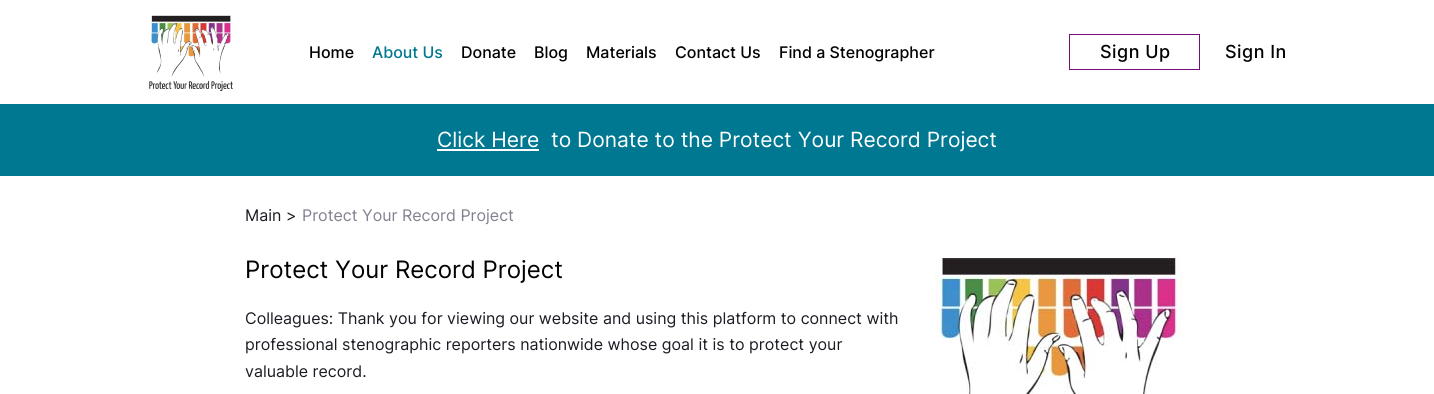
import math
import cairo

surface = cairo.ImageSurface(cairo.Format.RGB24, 1434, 394)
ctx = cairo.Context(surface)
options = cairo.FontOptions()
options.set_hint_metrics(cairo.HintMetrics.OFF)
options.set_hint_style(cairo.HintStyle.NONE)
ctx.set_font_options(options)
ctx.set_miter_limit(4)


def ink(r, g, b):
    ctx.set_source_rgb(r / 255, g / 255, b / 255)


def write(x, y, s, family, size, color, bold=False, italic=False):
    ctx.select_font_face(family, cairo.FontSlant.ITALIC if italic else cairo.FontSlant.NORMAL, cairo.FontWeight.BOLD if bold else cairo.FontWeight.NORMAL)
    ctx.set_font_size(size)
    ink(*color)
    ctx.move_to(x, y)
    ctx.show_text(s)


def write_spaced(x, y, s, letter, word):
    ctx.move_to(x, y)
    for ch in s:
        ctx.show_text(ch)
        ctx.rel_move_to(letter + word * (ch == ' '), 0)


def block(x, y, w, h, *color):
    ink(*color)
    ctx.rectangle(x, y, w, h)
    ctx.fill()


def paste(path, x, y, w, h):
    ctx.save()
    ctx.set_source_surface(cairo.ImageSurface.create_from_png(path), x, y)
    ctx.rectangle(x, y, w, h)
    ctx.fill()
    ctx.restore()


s1 = dict(family="Inter Medium", size=16, color=(0, 0, 0))
s2 = dict(family="Inter Medium", size=16, color=(0, 120, 146))
s3 = dict(family="Inter", size=21, color=(255, 255, 255))
s4 = dict(family="Inter", size=16, color=(27, 27, 35))
s5 = dict(family="Inter", size=16, color=(129, 129, 144))
s6 = dict(family="Inter", size=24, color=(0, 0, 0))

ink(255, 255, 255)
ctx.paint()
paste("pic1.png", 148, 15, 85, 77)
write(309, 58, "Home", **s1)
write(372, 58, "About Us", **s2)
write(461, 58, "Donate", **s1)
write(534, 58, "Blog", **s1)
write(586, 58, "Materials", **s1)
write(675, 58, "Contact Us", **s1)
write(779, 58, "Find a Stenographer", **s1)
ctx.rectangle(1069.5, 34.5, 130, 35)
ink(119, 13, 119)
ctx.set_line_width(1)
ctx.stroke()
ctx.set_font_size(18)
ink(0, 0, 0)
write_spaced(1100, 58, "Sign Up", 0.5, 0)
write_spaced(1225, 58, "Sign In", 0.5, 0)
block(0, 104, 1434, 72, 0, 120, 146)
write(437, 147, "Click Here", **s3)
block(437, 149, 102, 2, 255, 255, 255)
write(551, 147, "to Donate to the Protect Your Record Project", **s3)
write(245, 221, "Main", **s4)
write(286, 221, ">", **s4)
write(302, 221, "Protect Your Record Project", **s5)
write(245, 278, "Protect Your Record Project", **s6)
write(245, 324, "Colleagues: Thank you for viewing our website and using this platform to connect with", **s4)
write(245, 350, "professional stenographic reporters nationwide whose goal it is to protect your", **s4)
write(245, 377, "valuable record.", **s4)
paste("pic2.png", 935, 258, 248, 136)
surface.write_to_png("screenshot.png")
